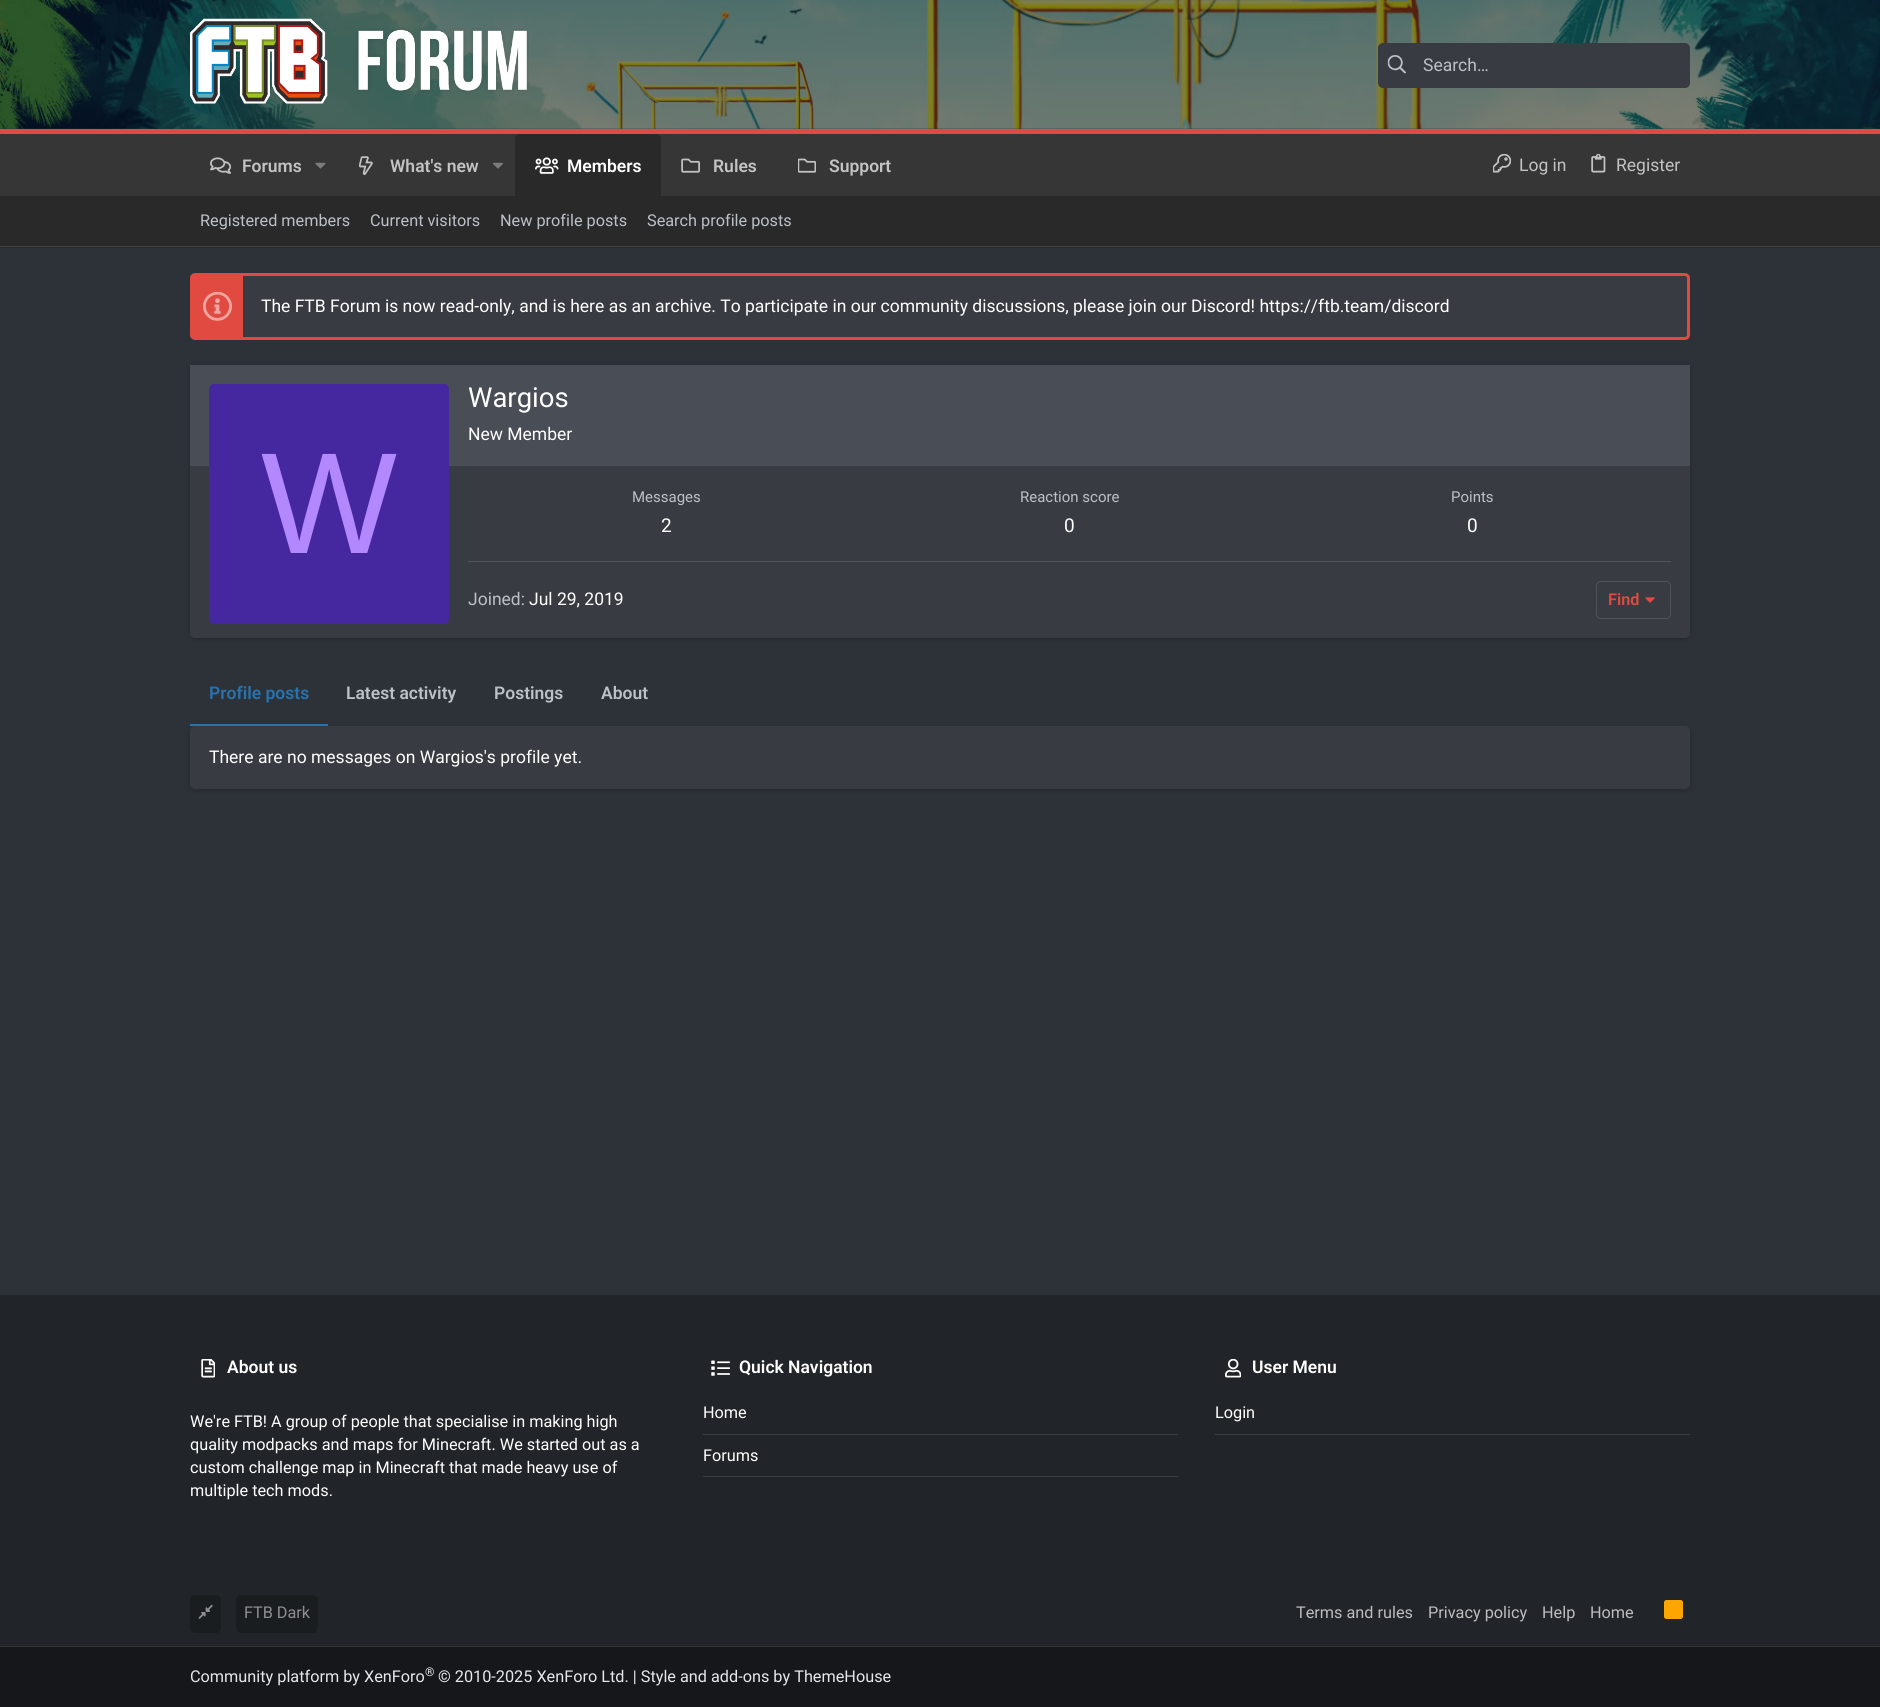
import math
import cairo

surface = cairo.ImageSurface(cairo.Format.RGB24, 1880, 1707)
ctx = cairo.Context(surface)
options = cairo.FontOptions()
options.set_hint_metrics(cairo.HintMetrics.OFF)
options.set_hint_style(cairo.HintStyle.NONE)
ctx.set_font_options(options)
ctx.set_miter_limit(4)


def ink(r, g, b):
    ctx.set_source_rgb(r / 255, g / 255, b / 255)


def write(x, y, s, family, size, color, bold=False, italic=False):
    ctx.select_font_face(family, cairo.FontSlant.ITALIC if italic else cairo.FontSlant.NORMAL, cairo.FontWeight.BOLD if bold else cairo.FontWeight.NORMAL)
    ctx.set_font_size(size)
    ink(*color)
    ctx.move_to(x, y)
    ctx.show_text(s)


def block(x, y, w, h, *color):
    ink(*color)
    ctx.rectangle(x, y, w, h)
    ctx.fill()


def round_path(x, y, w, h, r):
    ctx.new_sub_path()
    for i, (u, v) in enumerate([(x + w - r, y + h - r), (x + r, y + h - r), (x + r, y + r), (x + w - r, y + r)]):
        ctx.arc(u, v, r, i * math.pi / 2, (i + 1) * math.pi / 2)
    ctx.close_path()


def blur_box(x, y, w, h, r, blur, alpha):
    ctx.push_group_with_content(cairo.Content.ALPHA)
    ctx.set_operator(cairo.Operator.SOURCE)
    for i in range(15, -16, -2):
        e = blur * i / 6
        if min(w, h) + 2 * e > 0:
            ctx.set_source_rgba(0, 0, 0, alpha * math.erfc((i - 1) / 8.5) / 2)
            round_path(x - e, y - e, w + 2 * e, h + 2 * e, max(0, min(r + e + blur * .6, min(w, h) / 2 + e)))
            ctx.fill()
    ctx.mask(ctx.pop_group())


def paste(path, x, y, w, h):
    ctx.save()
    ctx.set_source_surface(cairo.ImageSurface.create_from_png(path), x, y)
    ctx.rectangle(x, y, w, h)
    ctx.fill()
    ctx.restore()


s1 = dict(family="Roboto", size=17.5, color=(188, 192, 199))
s2 = dict(family="Roboto SemiBold", size=17.5, color=(195, 195, 195))
s3 = dict(family="Roboto SemiBold", size=17.5, color=(255, 255, 255))
s4 = dict(family="Roboto", size=17.5, color=(195, 195, 195))
s5 = dict(family="Roboto", size=16.25, color=(188, 192, 199))
s6 = dict(family="Roboto", size=17.5, color=(255, 255, 255))
s7 = dict(family="Roboto", size=27.5, color=(255, 255, 255))
s8 = dict(family="Liberation Sans", size=144, color=(179, 136, 255))
s9 = dict(family="Roboto", size=15, color=(188, 192, 199))
s10 = dict(family="Roboto", size=19, color=(255, 255, 255))
s11 = dict(family="Roboto SemiBold", size=16.25, color=(224, 74, 64))
s12 = dict(family="Roboto SemiBold", size=17.5, color=(40, 115, 173))
s13 = dict(family="Roboto SemiBold", size=17.5, color=(188, 192, 199))
s14 = dict(family="Roboto", size=16.25, color=(255, 255, 255))
s15 = dict(family="Roboto", size=16.25, color=(141, 142, 144))
s16 = dict(family="Roboto", size=16.25, color=(188, 189, 191))
s17 = dict(family="Roboto", size=16.25, color=(230, 231, 234))
s18 = dict(family="Roboto", size=12, color=(230, 231, 234))

ink(45, 50, 56)
ctx.paint()
paste("pic1.png", 0, 0, 1880, 129)
paste("pic2.png", 190, 18, 339, 86)
ink(56, 60, 66)
round_path(1378, 43, 312, 45, 5)
ctx.fill()
paste("pic3.png", 1387, 55, 19, 19)
write(1423, 71, "Search…", **s1)
block(0, 134, 1880, 62, 54, 54, 54)
block(0, 129, 1880, 5, 224, 74, 64)
paste("pic4.png", 210, 157, 21, 17)
write(242, 172, "Forums", **s2)
paste("pic5.png", 315, 162, 11, 7)
paste("pic6.png", 359, 156, 14, 19)
write(390, 172, "What's new", **s2)
paste("pic7.png", 493, 162, 10, 7)
ink(41, 41, 41)
ctx.new_path()
ctx.move_to(520, 134)
ctx.line_to(656, 134)
ctx.curve_to(659, 134, 661, 136, 661, 139)
ctx.line_to(661, 196)
ctx.line_to(515, 196)
ctx.line_to(515, 139)
ctx.curve_to(515, 136, 517, 134, 520, 134)
ctx.close_path()
ctx.fill()
paste("pic8.png", 535, 157, 24, 17)
write(567, 172, "Members", **s3)
paste("pic9.png", 681, 158, 19, 15)
write(713, 172, "Rules", **s2)
paste("pic10.png", 798, 158, 18, 15)
write(829, 172, "Support", **s2)
paste("pic11.png", 1493, 154, 18, 19)
write(1519, 171, "Log in", **s4)
paste("pic12.png", 1591, 154, 15, 19)
write(1616, 171, "Register", **s4)
block(0, 196, 1880, 52, 41, 41, 41)
block(0, 246, 1880, 1, 67, 67, 67)
write(200, 226, "Registered members", **s5)
write(370, 226, "Current visitors", **s5)
write(500, 226, "New profile posts", **s5)
write(647, 226, "Search profile posts", **s5)
ink(56, 60, 66)
round_path(191.5, 274.5, 1497, 64, 3.5)
ctx.fill_preserve()
ink(224, 74, 64)
ctx.set_line_width(3)
ctx.stroke()
block(193, 276, 50, 61, 224, 74, 64)
paste("pic13.png", 203, 291, 29, 30)
write(261, 312, "The FTB Forum is now read-only, and is here as an archive. To participate in our community discussions, please join our Discord! https://ftb.team/discord", **s6)
ink(0, 0, 0)
blur_box(190, 366, 1500, 273, 5, 3, 0.2)
ink(56, 60, 66)
round_path(190, 365, 1500, 273, 5)
ctx.fill()
block(190, 365, 1500, 101, 72, 77, 86)
write(468, 407, "Wargios", **s7)
write(468, 440, "New Member", **s6)
ink(69, 39, 160)
round_path(209, 384, 240, 240, 5)
ctx.fill()
write(261, 553, "W", **s8)
write(632, 502, "Messages", **s9)
write(661, 532, "2", **s10)
write(1020, 502, "Reaction score", **s9)
write(1064, 532, "0", **s10)
write(1451, 502, "Points", **s9)
write(1467, 532, "0", **s10)
block(468, 561, 1203, 1, 80, 83, 89)
write(468, 605, "Joined:", **s1)
write(529, 605, "Jul 29, 2019", **s6)
round_path(1596.5, 581.5, 74, 37, 4.5)
ink(80, 83, 89)
ctx.set_line_width(1)
ctx.stroke()
write(1608, 605, "Find", **s11)
paste("pic14.png", 1645, 597, 10, 6)
ink(0, 0, 0)
blur_box(190, 728, 1500, 62, 5, 3, 0.2)
block(190, 724, 138, 2, 40, 115, 173)
write(209, 699, "Profile posts", **s12)
write(346, 699, "Latest activity", **s13)
write(494, 699, "Postings", **s13)
write(601, 699, "About", **s13)
ink(56, 60, 66)
round_path(190, 726, 1500, 63, 5)
ctx.fill()
write(209, 763, "There are no messages on Wargios's profile yet.", **s6)
block(0, 1295, 1880, 351, 33, 36, 40)
paste("pic15.png", 201, 1359, 14, 19)
write(227, 1373, "About us", **s3)
write(190, 1427, "We're FTB! A group of people that specialise in making high", **s14)
write(190, 1450, "quality modpacks and maps for Minecraft. We started out as a", **s14)
write(190, 1473, "custom challenge map in Minecraft that made heavy use of", **s14)
write(190, 1496, "multiple tech mods.", **s14)
paste("pic16.png", 711, 1360, 19, 16)
write(739, 1373, "Quick Navigation", **s3)
block(703, 1434, 475, 1, 60, 62, 66)
write(703, 1418, "Home", **s14)
block(703, 1476, 475, 1, 60, 62, 66)
write(703, 1461, "Forums", **s14)
paste("pic17.png", 1225, 1359, 16, 19)
write(1252, 1373, "User Menu", **s3)
block(1215, 1434, 475, 1, 60, 62, 66)
write(1215, 1418, "Login", **s14)
ink(26, 29, 32)
round_path(190, 1595, 31, 38, 5)
ctx.fill()
paste("pic18.png", 198, 1604, 15, 15)
round_path(236, 1595, 82, 38, 5)
ctx.fill()
write(244, 1618, "FTB Dark", **s15)
write(1296, 1618, "Terms and rules", **s16)
write(1428, 1618, "Privacy policy", **s16)
write(1542, 1618, "Help", **s16)
write(1590, 1618, "Home", **s16)
ink(255, 165, 0)
round_path(1664, 1600, 19, 19, 2.5)
ctx.fill()
block(0, 1647, 1880, 60, 21, 23, 26)
block(0, 1646, 1880, 1, 49, 51, 53)
write(190, 1682, "Community platform by XenForo", **s17)
write(425, 1676, "®", **s18)
write(438, 1682, "© 2010-2025 XenForo Ltd. | Style and add-ons by ThemeHouse", **s17)
surface.write_to_png("screenshot.png")
